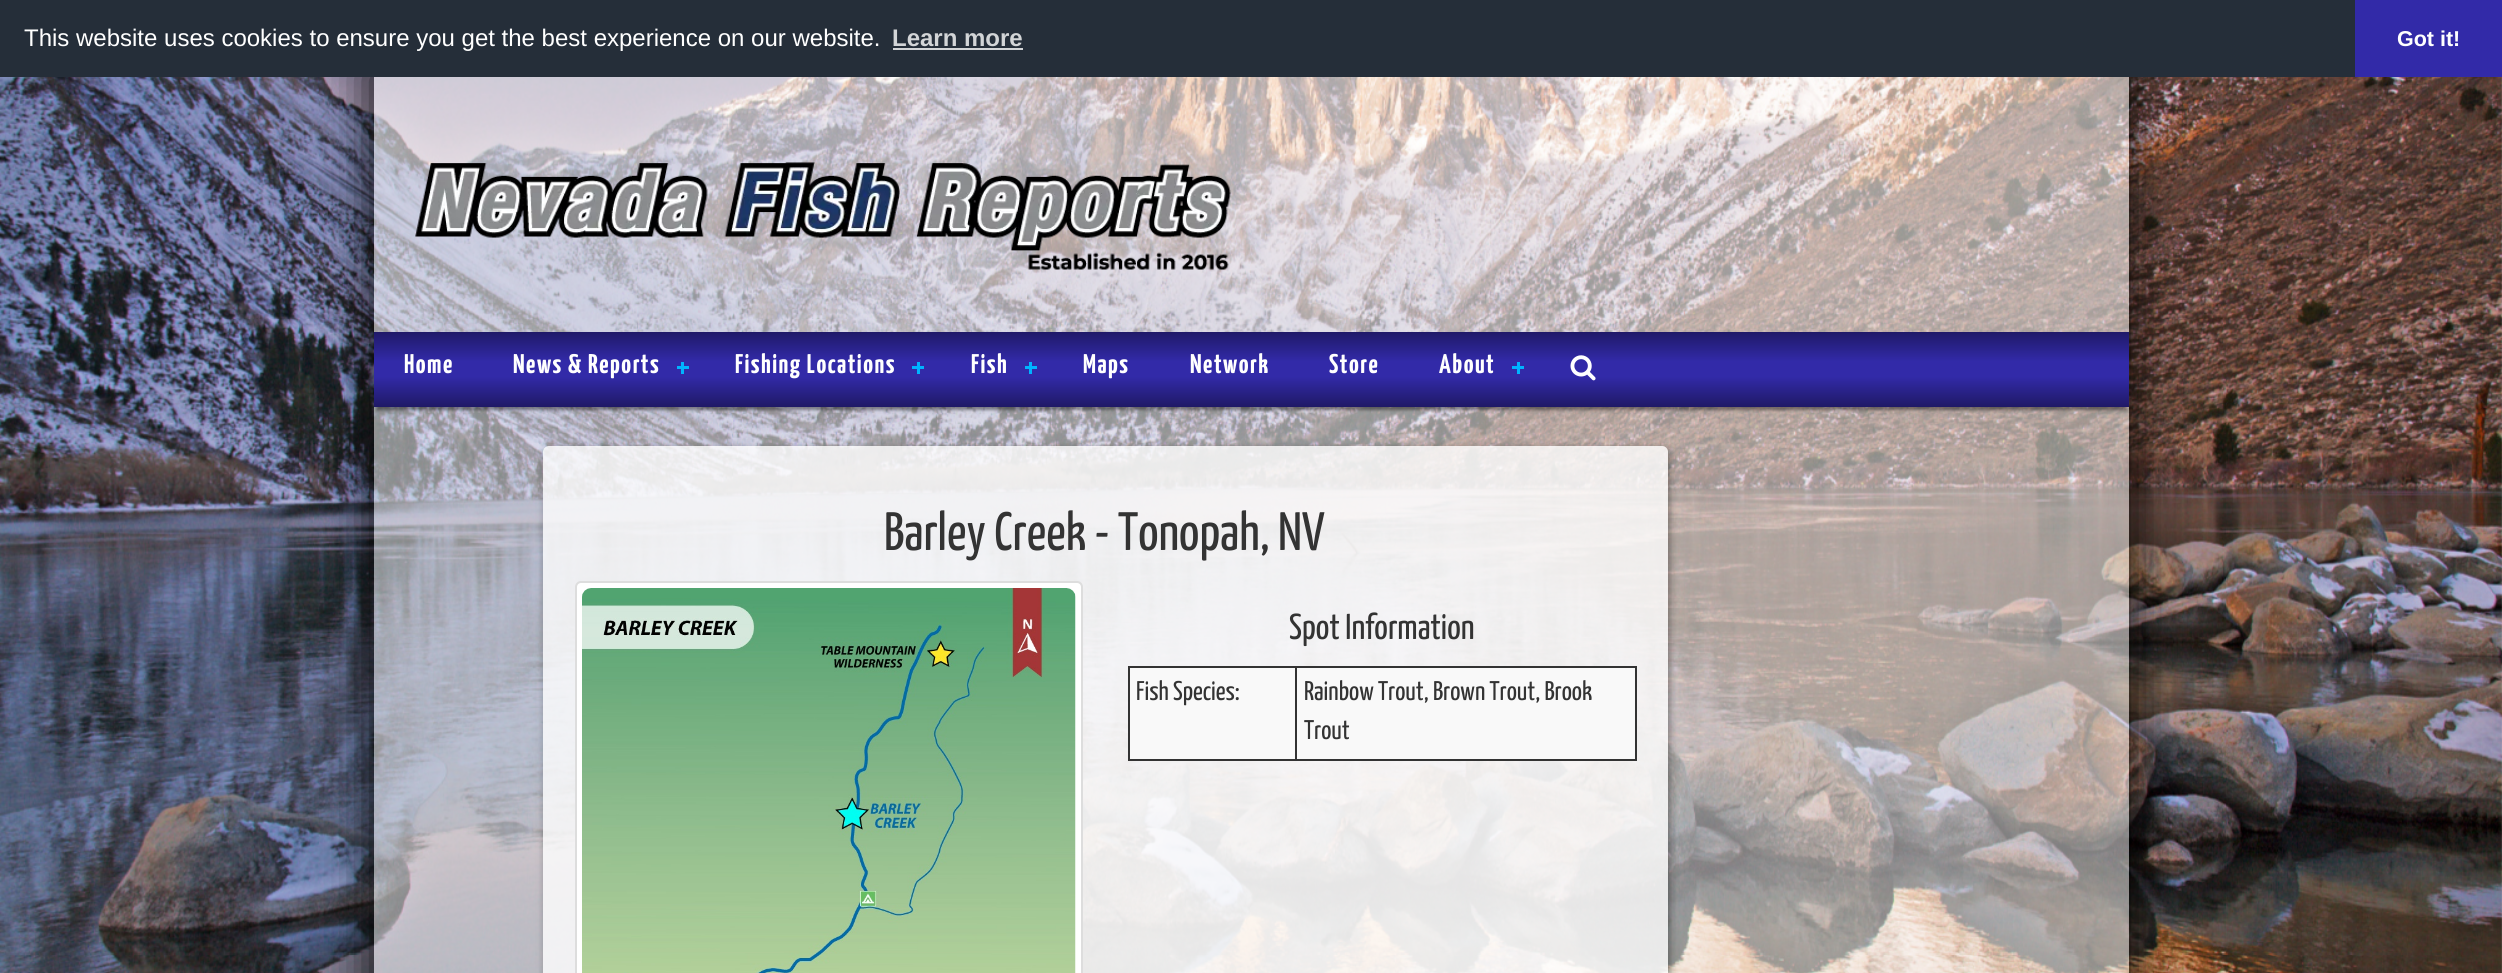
import math
import cairo

surface = cairo.ImageSurface(cairo.Format.RGB24, 2502, 973)
ctx = cairo.Context(surface)
options = cairo.FontOptions()
options.set_hint_metrics(cairo.HintMetrics.OFF)
options.set_hint_style(cairo.HintStyle.NONE)
ctx.set_font_options(options)
ctx.set_miter_limit(4)


def ink(r, g, b):
    ctx.set_source_rgb(r / 255, g / 255, b / 255)


def write(x, y, s, family, size, color, bold=False, italic=False):
    ctx.select_font_face(family, cairo.FontSlant.ITALIC if italic else cairo.FontSlant.NORMAL, cairo.FontWeight.BOLD if bold else cairo.FontWeight.NORMAL)
    ctx.set_font_size(size)
    ink(*color)
    ctx.move_to(x, y)
    ctx.show_text(s)


def write_spaced(x, y, s, letter, word):
    ctx.move_to(x, y)
    for ch in s:
        ctx.show_text(ch)
        ctx.rel_move_to(letter + word * (ch == ' '), 0)


def block(x, y, w, h, *color):
    ink(*color)
    ctx.rectangle(x, y, w, h)
    ctx.fill()


def round_path(x, y, w, h, r):
    ctx.new_sub_path()
    for i, (u, v) in enumerate([(x + w - r, y + h - r), (x + r, y + h - r), (x + r, y + r), (x + w - r, y + r)]):
        ctx.arc(u, v, r, i * math.pi / 2, (i + 1) * math.pi / 2)
    ctx.close_path()


def blur_box(x, y, w, h, r, blur, alpha):
    ctx.push_group_with_content(cairo.Content.ALPHA)
    ctx.set_operator(cairo.Operator.SOURCE)
    for i in range(15, -16, -2):
        e = blur * i / 6
        if min(w, h) + 2 * e > 0:
            ctx.set_source_rgba(0, 0, 0, alpha * math.erfc((i - 1) / 8.5) / 2)
            round_path(x - e, y - e, w + 2 * e, h + 2 * e, max(0, min(r + e + blur * .6, min(w, h) / 2 + e)))
            ctx.fill()
    ctx.mask(ctx.pop_group())


def paste(path, x, y, w, h):
    ctx.save()
    ctx.set_source_surface(cairo.ImageSurface.create_from_png(path), x, y)
    ctx.rectangle(x, y, w, h)
    ctx.fill()
    ctx.restore()


s1 = dict(family="Liberation Sans", size=24, color=(255, 255, 255))
s2 = dict(family="Liberation Sans", size=24, color=(211, 213, 215), bold=True)
s3 = dict(family="Liberation Sans", size=21.5, color=(255, 255, 255), bold=True)
s4 = dict(family="Yanone Kaffeesatz", size=54, color=(51, 51, 51))
s5 = dict(family="Yanone Kaffeesatz", size=36, color=(51, 51, 51))
s6 = dict(family="Yanone Kaffeesatz", size=27, color=(51, 51, 51))

ink(255, 255, 255)
ctx.paint()
paste("pic1.png", 0, 77, 2502, 896)
ctx.save()
ctx.set_fill_rule(cairo.FillRule.EVEN_ODD)
ctx.new_path()
ctx.move_to(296, 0)
ctx.line_to(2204, 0)
ctx.line_to(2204, 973)
ctx.line_to(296, 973)
ctx.close_path()
ctx.move_to(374, 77)
ctx.line_to(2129, 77)
ctx.line_to(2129, 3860)
ctx.line_to(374, 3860)
ctx.close_path()
ctx.clip()
ink(0, 0, 0)
blur_box(365, 69, 1770, 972, 0, 22.5, 0.8)
ctx.restore()
block(0, 0, 2355, 77, 37, 46, 57)
write(24, 46, "This website uses cookies to ensure you get the best experience on our website.", **s1)
write(892, 46, "Learn more", **s2)
block(893, 48, 130, 2, 211, 213, 215)
block(2355, 0, 147, 77, 50, 42, 168)
write(2397, 46, "Got it!", **s3)
ctx.set_source_rgba(1, 1, 1, 0.5)
ctx.rectangle(374, 77, 1755, 896)
ctx.fill()
ctx.set_source_rgba(1, 1, 1, 0.1)
ctx.rectangle(374, 77, 1755, 255)
ctx.fill()
paste("pic2.png", 415, 162, 816, 108)
ink(0, 0, 0)
blur_box(377, 341, 1749, 69, 0, 1.5, 0.4)
gradient = cairo.LinearGradient(1251, 331, 1251, 407)
gradient.add_color_stop_rgba(0, 0.122, 0.098, 0.4, 1)
gradient.add_color_stop_rgba(0.4, 0.196, 0.165, 0.659, 1)
gradient.add_color_stop_rgba(0.6, 0.196, 0.165, 0.659, 1)
gradient.add_color_stop_rgba(1, 0.122, 0.098, 0.4, 1)
ctx.set_source(gradient)
ctx.rectangle(374, 332, 1755, 75)
ctx.fill()
ctx.select_font_face("Yanone Kaffeesatz", cairo.FontSlant.NORMAL, cairo.FontWeight.BOLD)
ctx.set_font_size(27)
ink(255, 255, 255)
write_spaced(404, 373, "Home", 1.5, 0)
write_spaced(513, 373, "News & Reports", 1.5, 0)
block(681, 362, 3, 12, 0, 179, 255)
block(677, 366, 12, 3, 0, 179, 255)
ink(255, 255, 255)
write_spaced(735, 373, "Fishing Locations", 1.5, 0)
block(917, 362, 3, 12, 0, 179, 255)
block(912, 366, 12, 3, 0, 179, 255)
ink(255, 255, 255)
write_spaced(971, 373, "Fish", 1.5, 0)
block(1029, 362, 3, 12, 0, 179, 255)
block(1025, 366, 12, 3, 0, 179, 255)
ink(255, 255, 255)
write_spaced(1083, 373, "Maps", 1.5, 0)
write_spaced(1190, 373, "Network", 1.5, 0)
write_spaced(1329, 373, "Store", 1.5, 0)
write_spaced(1439, 373, "About", 1.5, 0)
block(1517, 362, 3, 12, 0, 179, 255)
block(1512, 366, 12, 3, 0, 179, 255)
paste("pic3.png", 1570, 355, 26, 26)
ctx.save()
ctx.set_fill_rule(cairo.FillRule.EVEN_ODD)
ctx.new_path()
ctx.move_to(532, 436)
ctx.line_to(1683, 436)
ctx.line_to(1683, 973)
ctx.line_to(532, 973)
ctx.close_path()
ctx.move_to(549, 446)
ctx.line_to(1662, 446)
ctx.curve_to(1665.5, 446, 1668, 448.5, 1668, 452)
ctx.line_to(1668, 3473)
ctx.curve_to(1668, 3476.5, 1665.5, 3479, 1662, 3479)
ctx.line_to(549, 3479)
ctx.curve_to(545.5, 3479, 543, 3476.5, 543, 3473)
ctx.line_to(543, 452)
ctx.curve_to(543, 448.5, 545.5, 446, 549, 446)
ctx.close_path()
ctx.clip()
ink(6, 6, 6)
blur_box(545, 449, 1125, 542, 6, 4, 0.4)
ctx.restore()
ctx.set_source_rgba(1, 1, 1, 0.8)
round_path(543, 446, 1125, 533, 6)
ctx.fill()
write(884, 550, "Barley Creek - Tonopah, NV", **s4)
ink(255, 255, 255)
round_path(576, 582, 506, 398, 5)
ctx.fill_preserve()
ink(221, 221, 221)
ctx.stroke()
paste("pic4.png", 582, 588, 494, 385)
write(1289, 639, "Spot Information", **s5)
block(1130, 668, 505, 91, 249, 249, 249)
block(1295, 666, 342, 2, 51, 51, 51)
block(1635, 666, 2, 95, 51, 51, 51)
block(1295, 759, 342, 2, 51, 51, 51)
block(1295, 666, 2, 95, 51, 51, 51)
block(1128, 666, 168, 2, 51, 51, 51)
block(1128, 759, 168, 2, 51, 51, 51)
block(1128, 666, 2, 95, 51, 51, 51)
write(1136, 700, "Fish Species:", **s6)
write(1304, 700, "Rainbow Trout, Brown Trout, Brook", **s6)
write(1304, 739, "Trout", **s6)
surface.write_to_png("screenshot.png")
